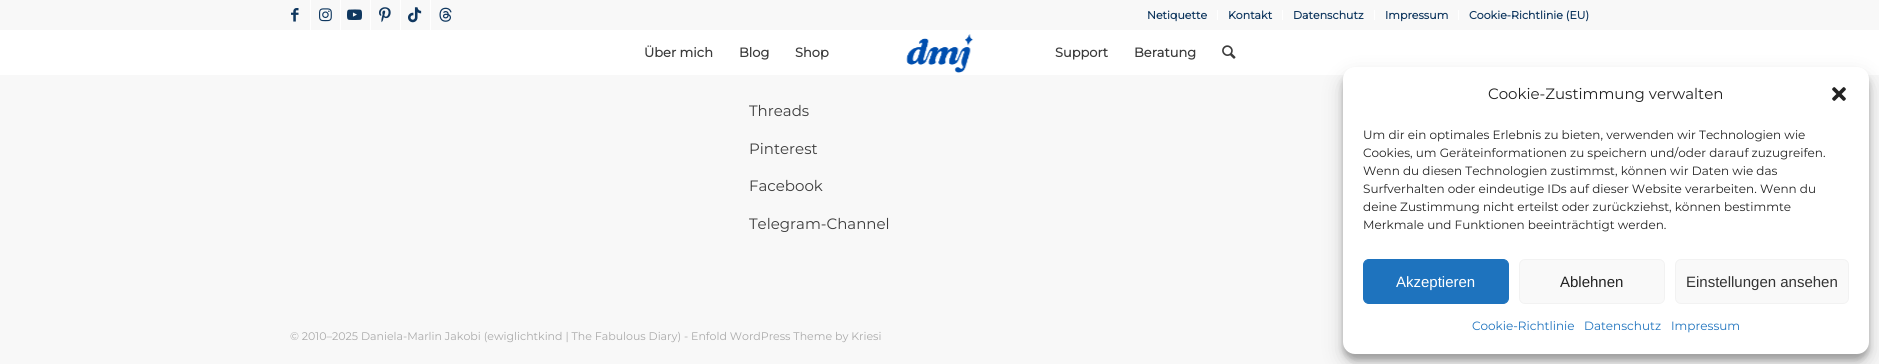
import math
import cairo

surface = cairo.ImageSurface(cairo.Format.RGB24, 1879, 364)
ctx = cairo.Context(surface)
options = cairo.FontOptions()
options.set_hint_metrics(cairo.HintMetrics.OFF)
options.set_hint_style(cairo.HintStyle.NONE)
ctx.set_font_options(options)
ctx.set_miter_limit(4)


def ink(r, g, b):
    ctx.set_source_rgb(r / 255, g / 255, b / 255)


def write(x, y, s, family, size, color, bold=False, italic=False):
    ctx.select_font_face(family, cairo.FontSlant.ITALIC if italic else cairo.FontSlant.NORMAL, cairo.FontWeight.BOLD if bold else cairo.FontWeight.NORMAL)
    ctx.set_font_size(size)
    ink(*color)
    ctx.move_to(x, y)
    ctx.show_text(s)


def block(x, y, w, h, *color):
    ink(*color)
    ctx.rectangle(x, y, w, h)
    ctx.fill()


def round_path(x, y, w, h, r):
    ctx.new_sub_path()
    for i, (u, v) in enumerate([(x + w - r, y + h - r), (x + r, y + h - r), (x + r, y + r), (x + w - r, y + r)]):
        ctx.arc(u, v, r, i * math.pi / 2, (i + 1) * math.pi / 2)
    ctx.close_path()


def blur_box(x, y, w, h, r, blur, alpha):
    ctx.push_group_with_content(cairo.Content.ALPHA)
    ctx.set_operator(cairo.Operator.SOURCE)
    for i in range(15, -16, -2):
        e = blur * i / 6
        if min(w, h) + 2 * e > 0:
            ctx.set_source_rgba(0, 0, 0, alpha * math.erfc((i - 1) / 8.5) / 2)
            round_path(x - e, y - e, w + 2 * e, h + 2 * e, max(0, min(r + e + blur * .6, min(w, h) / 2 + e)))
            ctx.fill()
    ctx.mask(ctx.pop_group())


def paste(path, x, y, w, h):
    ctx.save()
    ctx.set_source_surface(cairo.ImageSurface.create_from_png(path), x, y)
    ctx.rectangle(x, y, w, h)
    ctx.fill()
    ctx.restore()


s1 = dict(family="Montserrat", size=11, color=(15, 55, 95), bold=True)
s2 = dict(family="Montserrat", size=13, color=(60, 60, 60), bold=True)
s3 = dict(family="Montserrat Thin", size=15, color=(60, 60, 60))
s4 = dict(family="Montserrat Thin", size=11, color=(170, 170, 170))
s5 = dict(family="Montserrat Thin", size=15, color=(34, 34, 34))
s6 = dict(family="Montserrat Thin", size=12, color=(34, 34, 34))
s7 = dict(family="Liberation Sans", size=15, color=(255, 255, 255))
s8 = dict(family="Liberation Sans", size=15, color=(34, 34, 34))
s9 = dict(family="Liberation Sans", size=15, color=(51, 51, 51))
s10 = dict(family="Montserrat Thin", size=12, color=(30, 115, 190))

ink(248, 248, 248)
ctx.paint()
block(310, 0, 1, 30, 255, 255, 255)
paste("pic1.png", 291, 8, 8, 14)
block(340, 0, 1, 30, 255, 255, 255)
paste("pic2.png", 319, 8, 13, 14)
block(370, 0, 1, 30, 255, 255, 255)
paste("pic3.png", 347, 9, 15, 11)
block(400, 0, 1, 30, 255, 255, 255)
paste("pic4.png", 379, 7, 12, 16)
block(430, 0, 1, 30, 255, 255, 255)
paste("pic5.png", 408, 7, 14, 16)
paste("pic6.png", 439, 7, 13, 15)
block(1217, 10, 1, 10, 255, 255, 255)
write(1147, 19, "Netiquette", **s1)
block(1282, 10, 1, 10, 255, 255, 255)
write(1228, 19, "Kontakt", **s1)
block(1374, 10, 1, 10, 255, 255, 255)
write(1293, 19, "Datenschutz", **s1)
block(1458, 10, 1, 10, 255, 255, 255)
write(1385, 19, "Impressum", **s1)
write(1469, 19, "Cookie-Richtlinie (EU)", **s1)
block(0, 30, 1879, 45, 255, 255, 255)
paste("pic7.png", 906, 34, 68, 39)
write(644, 57, "Über mich", **s2)
write(739, 57, "Blog", **s2)
write(795, 57, "Shop", **s2)
write(1055, 57, "Support", **s2)
write(1134, 57, "Beratung", **s2)
paste("pic8.png", 1222, 45, 14, 14)
write(749, 116, "Threads", **s3)
write(749, 154, "Pinterest", **s3)
write(749, 191, "Facebook", **s3)
write(749, 229, "Telegram-Channel", **s3)
write(290, 340, "© 2010–2025 Daniela-Marlin Jakobi (ewiglichtkind | The Fabulous Diary) - Enfold WordPress Theme by Kriesi", **s4)
ink(0, 0, 0)
blur_box(1343, 73, 526, 287, 12, 3, 0.23)
blur_box(1343, 77, 526, 287, 12, 10, 0.19)
ink(255, 255, 255)
round_path(1343, 67, 526, 287, 12)
ctx.fill()
write(1488, 99, "Cookie-Zustimmung verwalten", **s5)
paste("pic9.png", 1832, 87, 14, 14)
write(1363, 139, "Um dir ein optimales Erlebnis zu bieten, verwenden wir Technologien wie", **s6)
write(1363, 157, "Cookies, um Geräteinformationen zu speichern und/oder darauf zuzugreifen.", **s6)
write(1363, 175, "Wenn du diesen Technologien zustimmst, können wir Daten wie das", **s6)
write(1363, 193, "Surfverhalten oder eindeutige IDs auf dieser Website verarbeiten. Wenn du", **s6)
write(1363, 211, "deine Zustimmung nicht erteilst oder zurückziehst, können bestimmte", **s6)
write(1363, 229, "Merkmale und Funktionen beeinträchtigt werden.", **s6)
ink(30, 115, 190)
round_path(1363.5, 259.5, 145, 44, 5.5)
ctx.fill_preserve()
ctx.set_line_width(1)
ctx.stroke()
write(1396, 287, "Akzeptieren", **s7)
ink(249, 249, 249)
round_path(1519.5, 259.5, 145, 44, 5.5)
ctx.fill_preserve()
ink(242, 242, 242)
ctx.stroke()
write(1560, 287, "Ablehnen", **s8)
ink(249, 249, 249)
round_path(1675.5, 259.5, 173, 44, 5.5)
ctx.fill_preserve()
ink(242, 242, 242)
ctx.stroke()
write(1686, 287, "Einstellungen ansehen", **s9)
write(1472, 330, "Cookie-Richtlinie", **s10)
write(1584, 330, "Datenschutz", **s10)
write(1671, 330, "Impressum", **s10)
surface.write_to_png("screenshot.png")
